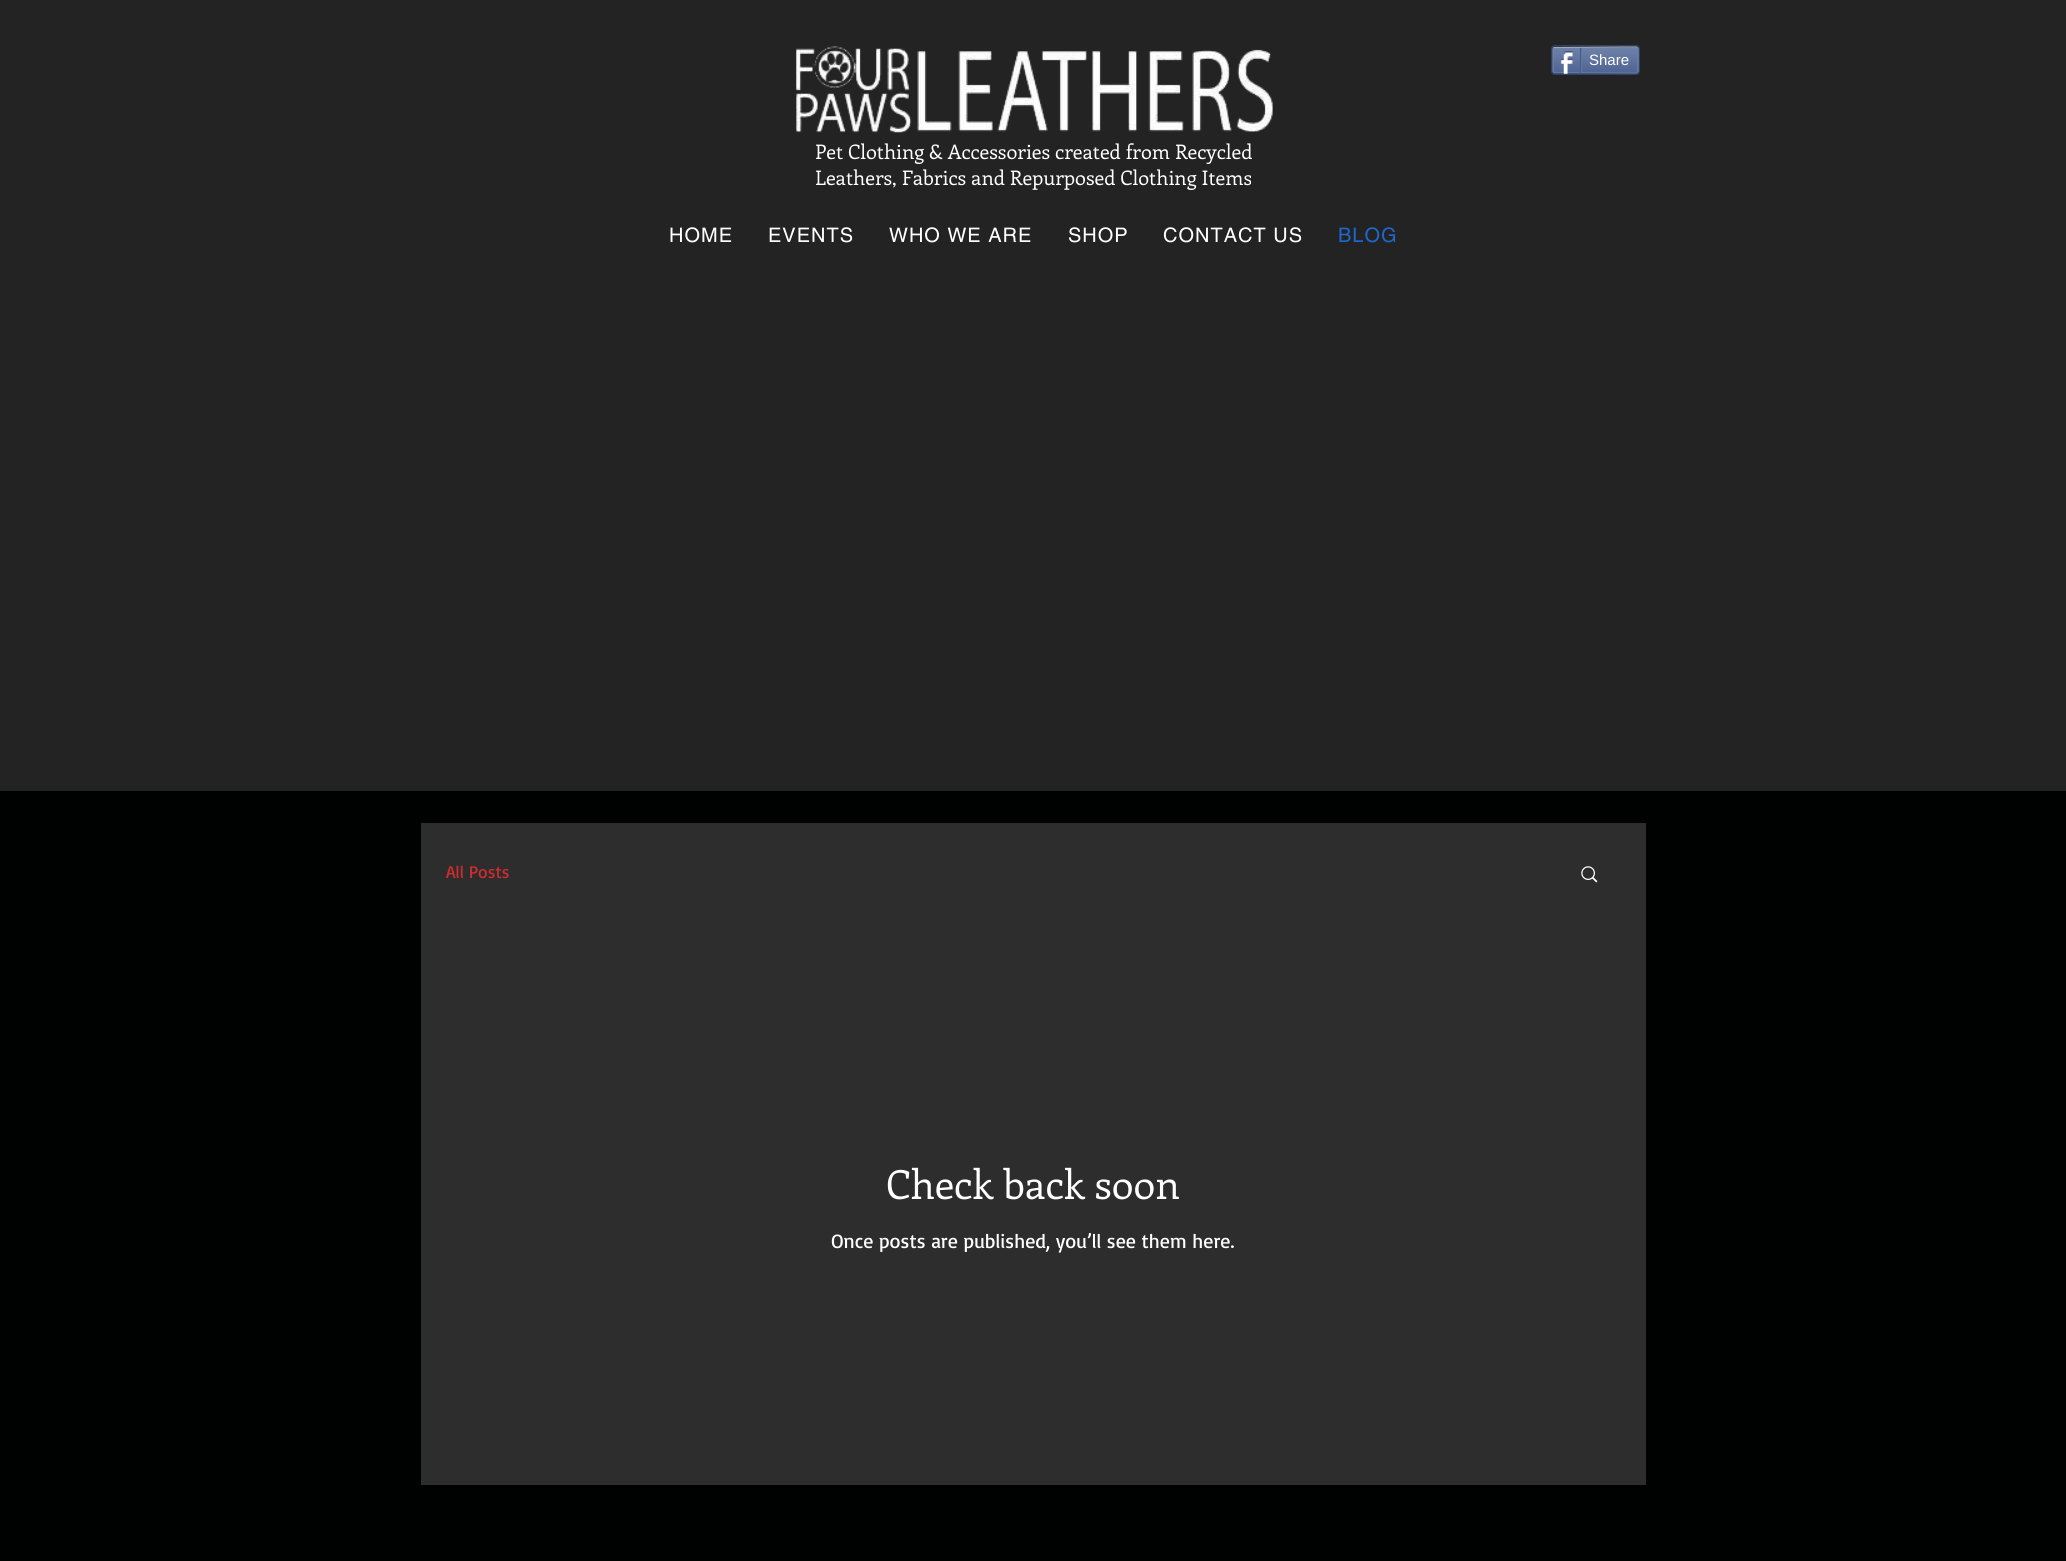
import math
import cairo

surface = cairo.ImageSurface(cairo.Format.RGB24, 2066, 1561)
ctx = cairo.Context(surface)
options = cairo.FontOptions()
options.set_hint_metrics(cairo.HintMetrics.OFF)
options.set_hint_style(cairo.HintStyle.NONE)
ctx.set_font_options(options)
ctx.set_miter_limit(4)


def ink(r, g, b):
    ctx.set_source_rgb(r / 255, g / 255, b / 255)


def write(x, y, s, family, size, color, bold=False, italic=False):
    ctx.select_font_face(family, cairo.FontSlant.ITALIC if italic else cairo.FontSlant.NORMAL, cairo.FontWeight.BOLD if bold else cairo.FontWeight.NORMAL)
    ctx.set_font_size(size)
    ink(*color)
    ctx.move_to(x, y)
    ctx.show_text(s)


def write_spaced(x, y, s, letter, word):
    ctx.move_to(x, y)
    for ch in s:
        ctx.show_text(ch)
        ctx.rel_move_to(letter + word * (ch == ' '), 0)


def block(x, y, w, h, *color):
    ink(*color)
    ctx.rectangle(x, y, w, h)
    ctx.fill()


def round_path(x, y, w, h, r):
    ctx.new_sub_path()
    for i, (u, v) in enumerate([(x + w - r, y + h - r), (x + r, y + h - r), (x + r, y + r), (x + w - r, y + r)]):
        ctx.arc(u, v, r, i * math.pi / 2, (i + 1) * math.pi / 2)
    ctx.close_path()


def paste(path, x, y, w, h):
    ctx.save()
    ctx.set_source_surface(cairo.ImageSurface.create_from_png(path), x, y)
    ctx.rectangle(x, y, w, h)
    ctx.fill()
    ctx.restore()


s1 = dict(family="Liberation Sans", size=15, color=(255, 255, 255))
s2 = dict(family="Enriqueta", size=20, color=(255, 255, 255))
s3 = dict(family="Basic", size=17.5, color=(207, 45, 45))
s4 = dict(family="Enriqueta", size=40, color=(255, 255, 255))
s5 = dict(family="Basic", size=20, color=(255, 255, 255))

ink(0, 1, 1)
ctx.paint()
block(0, 0, 2066, 791, 36, 35, 35)
round_path(1551.5, 45.5, 88, 29, 3.5)
ink(45, 69, 101)
ctx.set_line_width(1)
ctx.stroke()
paste("pic1.png", 1552, 47, 87, 27)
ctx.new_path()
ctx.move_to(1553.5, 47.5)
ctx.line_to(1622.5, 47)
ctx.line_to(1636, 47)
ctx.line_to(1637.5, 47.5)
ink(154, 171, 198)
ctx.set_line_width(1.2)
ctx.stroke()
ctx.new_path()
ctx.move_to(1637.5, 47.5)
ctx.line_to(1638, 49)
ctx.line_to(1638, 71)
ctx.line_to(1637.5, 72.5)
ink(111, 131, 173)
ctx.stroke()
ctx.new_path()
ctx.move_to(1637.5, 72.5)
ctx.line_to(1636, 73)
ctx.line_to(1553.5, 72.5)
ink(97, 118, 163)
ctx.stroke()
ctx.new_path()
ctx.move_to(1553.5, 72.5)
ctx.line_to(1553, 71)
ctx.line_to(1553, 49)
ctx.line_to(1553.5, 47.5)
ink(111, 131, 173)
ctx.stroke()
paste("pic2.png", 1560, 51, 13, 23)
block(1580, 48, 1, 26, 66, 94, 133)
write(1589, 65, "Share", **s1)
block(1581, 48, 1, 25, 97, 118, 163)
paste("pic3.png", 795, 46, 478, 87)
write(815, 159, "Pet Clothing & Accessories created from Recycled", **s2)
write(815, 185, "Leathers, Fabrics and Repurposed Clothing Items", **s2)
ctx.select_font_face("helvetica")
write_spaced(669, 242, "HOME", 1, 0)
write_spaced(768, 242, "EVENTS", 1, 0)
write_spaced(889, 242, "WHO WE ARE", 1, 0)
write_spaced(1068, 242, "SHOP", 1, 0)
write_spaced(1163, 242, "CONTACT US", 1, 0)
ink(29, 103, 205)
write_spaced(1338, 242, "BLOG", 1, 0)
block(421, 823, 1225, 662, 45, 45, 45)
write(446, 878, "All Posts", **s3)
paste("pic4.png", 1581, 866, 17, 17)
write(886, 1199, "Check back soon", **s4)
write(831, 1248, "Once posts are published, you’ll see them here.", **s5)
surface.write_to_png("screenshot.png")
